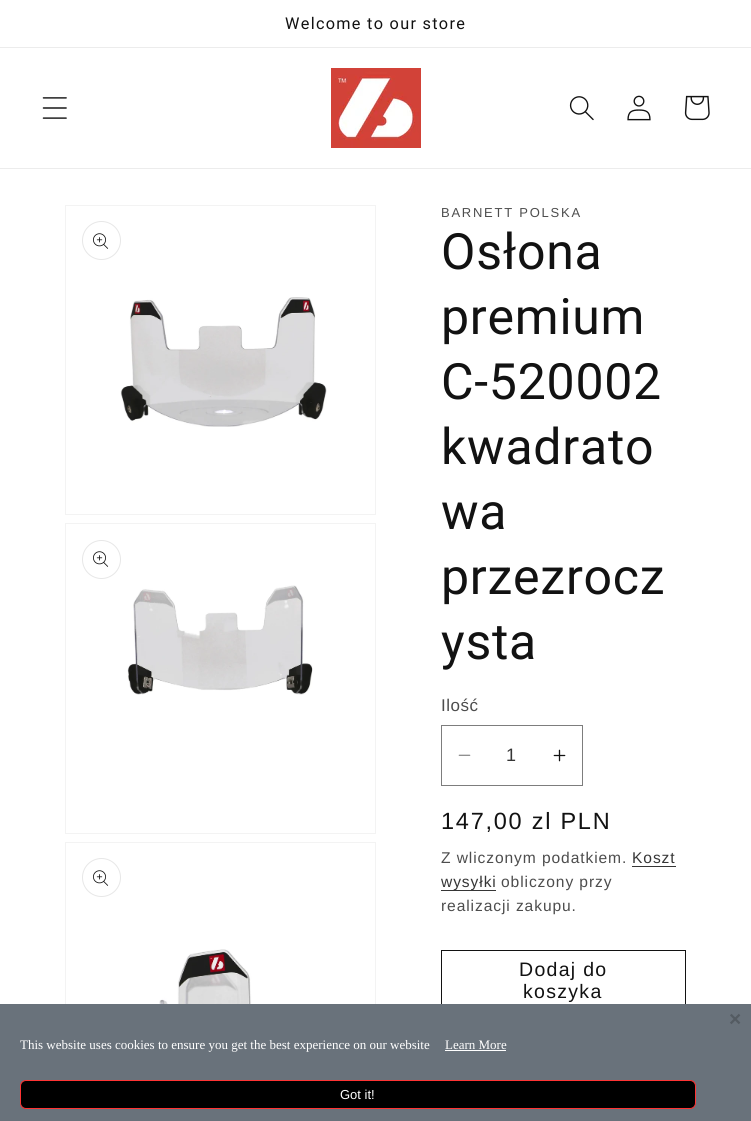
import math
import cairo

surface = cairo.ImageSurface(cairo.Format.RGB24, 751, 1121)
ctx = cairo.Context(surface)
options = cairo.FontOptions()
options.set_hint_metrics(cairo.HintMetrics.OFF)
options.set_hint_style(cairo.HintStyle.NONE)
ctx.set_font_options(options)
ctx.set_miter_limit(4)


def ink(r, g, b):
    ctx.set_source_rgb(r / 255, g / 255, b / 255)


def write(x, y, s, family, size, color, bold=False, italic=False):
    ctx.select_font_face(family, cairo.FontSlant.ITALIC if italic else cairo.FontSlant.NORMAL, cairo.FontWeight.BOLD if bold else cairo.FontWeight.NORMAL)
    ctx.set_font_size(size)
    ink(*color)
    ctx.move_to(x, y)
    ctx.show_text(s)


def write_spaced(x, y, s, letter, word):
    ctx.move_to(x, y)
    for ch in s:
        ctx.show_text(ch)
        ctx.rel_move_to(letter + word * (ch == ' '), 0)


def block(x, y, w, h, *color):
    ink(*color)
    ctx.rectangle(x, y, w, h)
    ctx.fill()


def round_path(x, y, w, h, r):
    ctx.new_sub_path()
    for i, (u, v) in enumerate([(x + w - r, y + h - r), (x + r, y + h - r), (x + r, y + r), (x + w - r, y + r)]):
        ctx.arc(u, v, r, i * math.pi / 2, (i + 1) * math.pi / 2)
    ctx.close_path()


def paste(path, x, y, w, h):
    ctx.save()
    ctx.set_source_surface(cairo.ImageSurface.create_from_png(path), x, y)
    ctx.rectangle(x, y, w, h)
    ctx.fill()
    ctx.restore()


s1 = dict(family="Liberation Sans", size=18, color=(54, 54, 54))
s2 = dict(family="Liberation Sans", size=21, color=(84, 91, 98), bold=True)
s3 = dict(family="Liberation Serif", size=13, color=(255, 255, 255))
s4 = dict(family="Liberation Sans", size=13, color=(255, 255, 255))

ink(255, 255, 255)
ctx.paint()
block(0, 47, 751, 1, 236, 236, 236)
ctx.select_font_face("Roboto")
ctx.set_font_size(16.25)
ink(18, 18, 18)
write_spaced(285, 29, "Welcome to our store", 1.3, 0)
block(0, 168, 751, 1, 236, 236, 236)
paste("pic1.png", 42, 97, 25, 22)
paste("pic2.png", 331, 68, 90, 80)
paste("pic3.png", 569, 96, 25, 25)
paste("pic4.png", 627, 95, 24, 26)
paste("pic5.png", 684, 95, 26, 26)
ctx.rectangle(65.5, 205.5, 310, 309)
ink(243, 243, 243)
ctx.set_line_width(1)
ctx.stroke()
ctx.arc(101.5, 240.5, 19, 0, 2 * math.pi)
ink(231, 231, 231)
ctx.stroke()
paste("pic6.png", 93, 233, 16, 16)
paste("pic7.png", 120, 297, 207, 130)
ctx.rectangle(65.5, 523.5, 310, 310)
ink(243, 243, 243)
ctx.stroke()
ctx.arc(101.5, 559.5, 19, 0, 2 * math.pi)
ink(231, 231, 231)
ctx.stroke()
paste("pic6.png", 93, 551, 16, 16)
paste("pic8.png", 127, 585, 186, 110)
ctx.rectangle(65.5, 842.5, 310, 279)
ink(243, 243, 243)
ctx.stroke()
ctx.arc(101.5, 877.5, 19, 0, 2 * math.pi)
ink(231, 231, 231)
ctx.stroke()
paste("pic6.png", 93, 870, 16, 16)
paste("pic9.png", 159, 949, 98, 55)
ctx.select_font_face("Liberation Sans")
ctx.set_font_size(13)
ink(77, 77, 77)
write_spaced(441, 217, "BARNETT POLSKA", 1.75, 0)
ctx.select_font_face("Roboto")
ctx.set_font_size(50)
ink(18, 18, 18)
write_spaced(441, 269, "Osłona", 0.75, 0)
write_spaced(441, 334, "premium", 0.75, 0)
write_spaced(441, 399, "C-520002", 0.75, 0)
write_spaced(441, 464, "kwadrato", 0.75, 0)
write_spaced(441, 529, "wa", 0.75, 0)
write_spaced(441, 594, "przezrocz", 0.75, 0)
write_spaced(441, 659, "ysta", 0.75, 0)
ctx.select_font_face("Liberation Sans")
ctx.set_font_size(17)
ink(77, 77, 77)
write_spaced(441, 711, "Ilość", 0.5, 0)
paste("pic10.png", 458, 754, 13, 2)
paste("pic11.png", 553, 749, 13, 13)
ctx.rectangle(441.5, 725.5, 141, 60)
ink(125, 125, 125)
ctx.stroke()
write(506, 761, "1", **s1)
ctx.set_font_size(23.5)
ink(18, 18, 18)
write_spaced(441, 829, "147,00 zl PLN", 1.75, 0)
ctx.set_font_size(15.6)
ink(77, 77, 77)
write_spaced(441, 863, "Z wliczonym podatkiem.", 0.9, 0)
ink(54, 54, 54)
write_spaced(632, 863, "Koszt", 0.9, 0)
block(632, 866, 44, 1, 54, 54, 54)
block(441, 890, 55, 1, 54, 54, 54)
write_spaced(441, 887, "wysyłki", 0.9, 0)
ink(77, 77, 77)
write_spaced(501, 887, "obliczony przy", 0.9, 0)
write_spaced(441, 911, "realizacji zakupu.", 0.9, 0)
ctx.rectangle(441.5, 950.5, 244, 60)
ink(18, 18, 18)
ctx.stroke()
ctx.set_font_size(19.5)
write_spaced(519, 976, "Dodaj do", 1.3, 0)
write_spaced(523, 998, "koszyka", 1.3, 0)
block(0, 1004, 751, 117, 105, 114, 123)
write(729, 1026, "×", **s2)
write(20, 1049, "This website uses cookies to ensure you get the best experience on our website", **s3)
write(445, 1049, "Learn More", **s3)
block(445, 1050, 61, 1, 255, 255, 255)
ink(0, 0, 0)
round_path(20.5, 1080.5, 675, 28, 5.5)
ctx.fill_preserve()
ink(255, 51, 51)
ctx.stroke()
write(340, 1099, "Got it!", **s4)
surface.write_to_png("screenshot.png")
